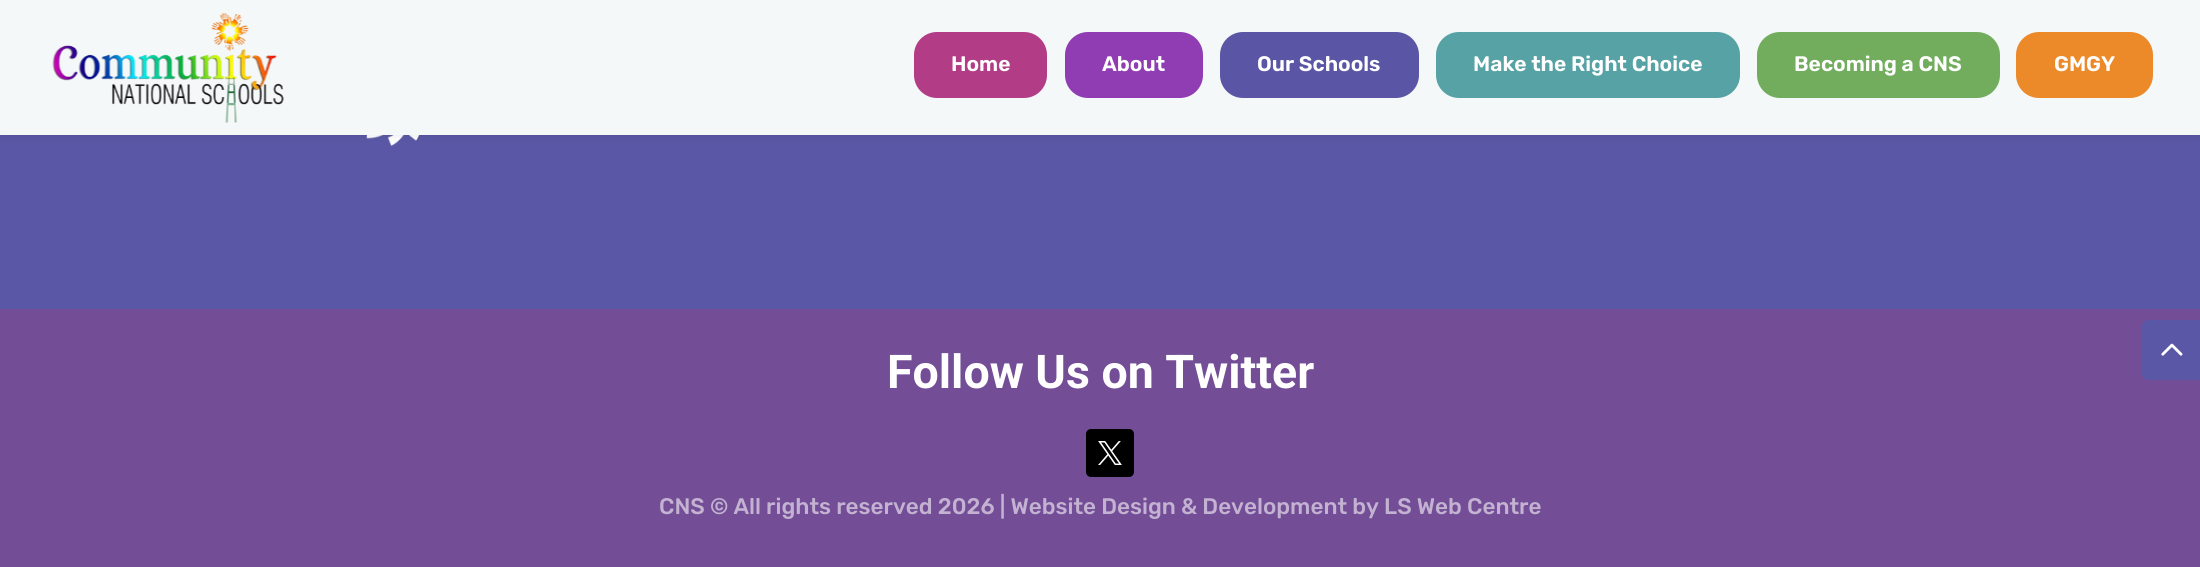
import math
import cairo

surface = cairo.ImageSurface(cairo.Format.RGB24, 2200, 567)
ctx = cairo.Context(surface)
options = cairo.FontOptions()
options.set_hint_metrics(cairo.HintMetrics.OFF)
options.set_hint_style(cairo.HintStyle.NONE)
ctx.set_font_options(options)
ctx.set_miter_limit(4)


def ink(r, g, b):
    ctx.set_source_rgb(r / 255, g / 255, b / 255)


def write(x, y, s, family, size, color, bold=False, italic=False):
    ctx.select_font_face(family, cairo.FontSlant.ITALIC if italic else cairo.FontSlant.NORMAL, cairo.FontWeight.BOLD if bold else cairo.FontWeight.NORMAL)
    ctx.set_font_size(size)
    ink(*color)
    ctx.move_to(x, y)
    ctx.show_text(s)


def block(x, y, w, h, *color):
    ink(*color)
    ctx.rectangle(x, y, w, h)
    ctx.fill()


def round_path(x, y, w, h, r):
    ctx.new_sub_path()
    for i, (u, v) in enumerate([(x + w - r, y + h - r), (x + r, y + h - r), (x + r, y + r), (x + w - r, y + r)]):
        ctx.arc(u, v, r, i * math.pi / 2, (i + 1) * math.pi / 2)
    ctx.close_path()


def blur_box(x, y, w, h, r, blur, alpha):
    ctx.push_group_with_content(cairo.Content.ALPHA)
    ctx.set_operator(cairo.Operator.SOURCE)
    for i in range(15, -16, -2):
        e = blur * i / 6
        if min(w, h) + 2 * e > 0:
            ctx.set_source_rgba(0, 0, 0, alpha * math.erfc((i - 1) / 8.5) / 2)
            round_path(x - e, y - e, w + 2 * e, h + 2 * e, max(0, min(r + e + blur * .6, min(w, h) / 2 + e)))
            ctx.fill()
    ctx.mask(ctx.pop_group())


def paste(path, x, y, w, h):
    ctx.save()
    ctx.set_source_surface(cairo.ImageSurface.create_from_png(path), x, y)
    ctx.rectangle(x, y, w, h)
    ctx.fill()
    ctx.restore()


s1 = dict(family="Rubik SemiBold", size=21, color=(255, 255, 255))
s2 = dict(family="Roboto", size=46.5, color=(255, 255, 255), bold=True)
s3 = dict(family="Rubik Medium", size=22.5, color=(195, 178, 210))

ink(90, 87, 166)
ctx.paint()
paste("pic2.png", 366, 135, 53, 11)
ink(0, 0, 0)
blur_box(0, 0, 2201, 135, 0, 5, 0.1)
block(0, 0, 2200, 135, 245, 248, 249)
paste("pic1.png", 52, 13, 232, 110)
ink(179, 60, 135)
round_path(914, 32, 133, 66, 23)
ctx.fill()
write(951, 71, "Home", **s1)
ink(144, 60, 179)
round_path(1065, 32, 138, 66, 23)
ctx.fill()
write(1102, 71, "About", **s1)
ink(90, 86, 165)
round_path(1220, 32, 199, 66, 23)
ctx.fill()
write(1257, 71, "Our Schools", **s1)
ink(86, 162, 165)
round_path(1436, 32, 304, 66, 23)
ctx.fill()
write(1473, 71, "Make the Right Choice", **s1)
ink(114, 173, 94)
round_path(1757, 32, 243, 66, 23)
ctx.fill()
write(1794, 71, "Becoming a CNS", **s1)
ink(236, 138, 42)
round_path(2016, 32, 137, 66, 23)
ctx.fill()
write(2054, 71, "GMGY", **s1)
block(0, 309, 2200, 258, 115, 77, 150)
write(887, 388, "Follow Us on Twitter", **s2)
ink(0, 0, 0)
round_path(1086, 429, 48, 48, 5)
ctx.fill()
paste("pic3.png", 1098, 441, 24, 24)
write(659, 514, "CNS © All rights reserved 2026 | Website Design & Development by LS Web Centre", **s3)
ink(90, 87, 166)
ctx.new_path()
ctx.move_to(2149, 320)
ctx.line_to(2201, 320)
ctx.line_to(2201, 380)
ctx.line_to(2149, 380)
ctx.curve_to(2144.5, 380, 2141, 376.5, 2141, 372)
ctx.line_to(2141, 328)
ctx.curve_to(2141, 323.5, 2144.5, 320, 2149, 320)
ctx.close_path()
ctx.fill()
paste("pic4.png", 2161, 343, 22, 13)
surface.write_to_png("screenshot.png")
